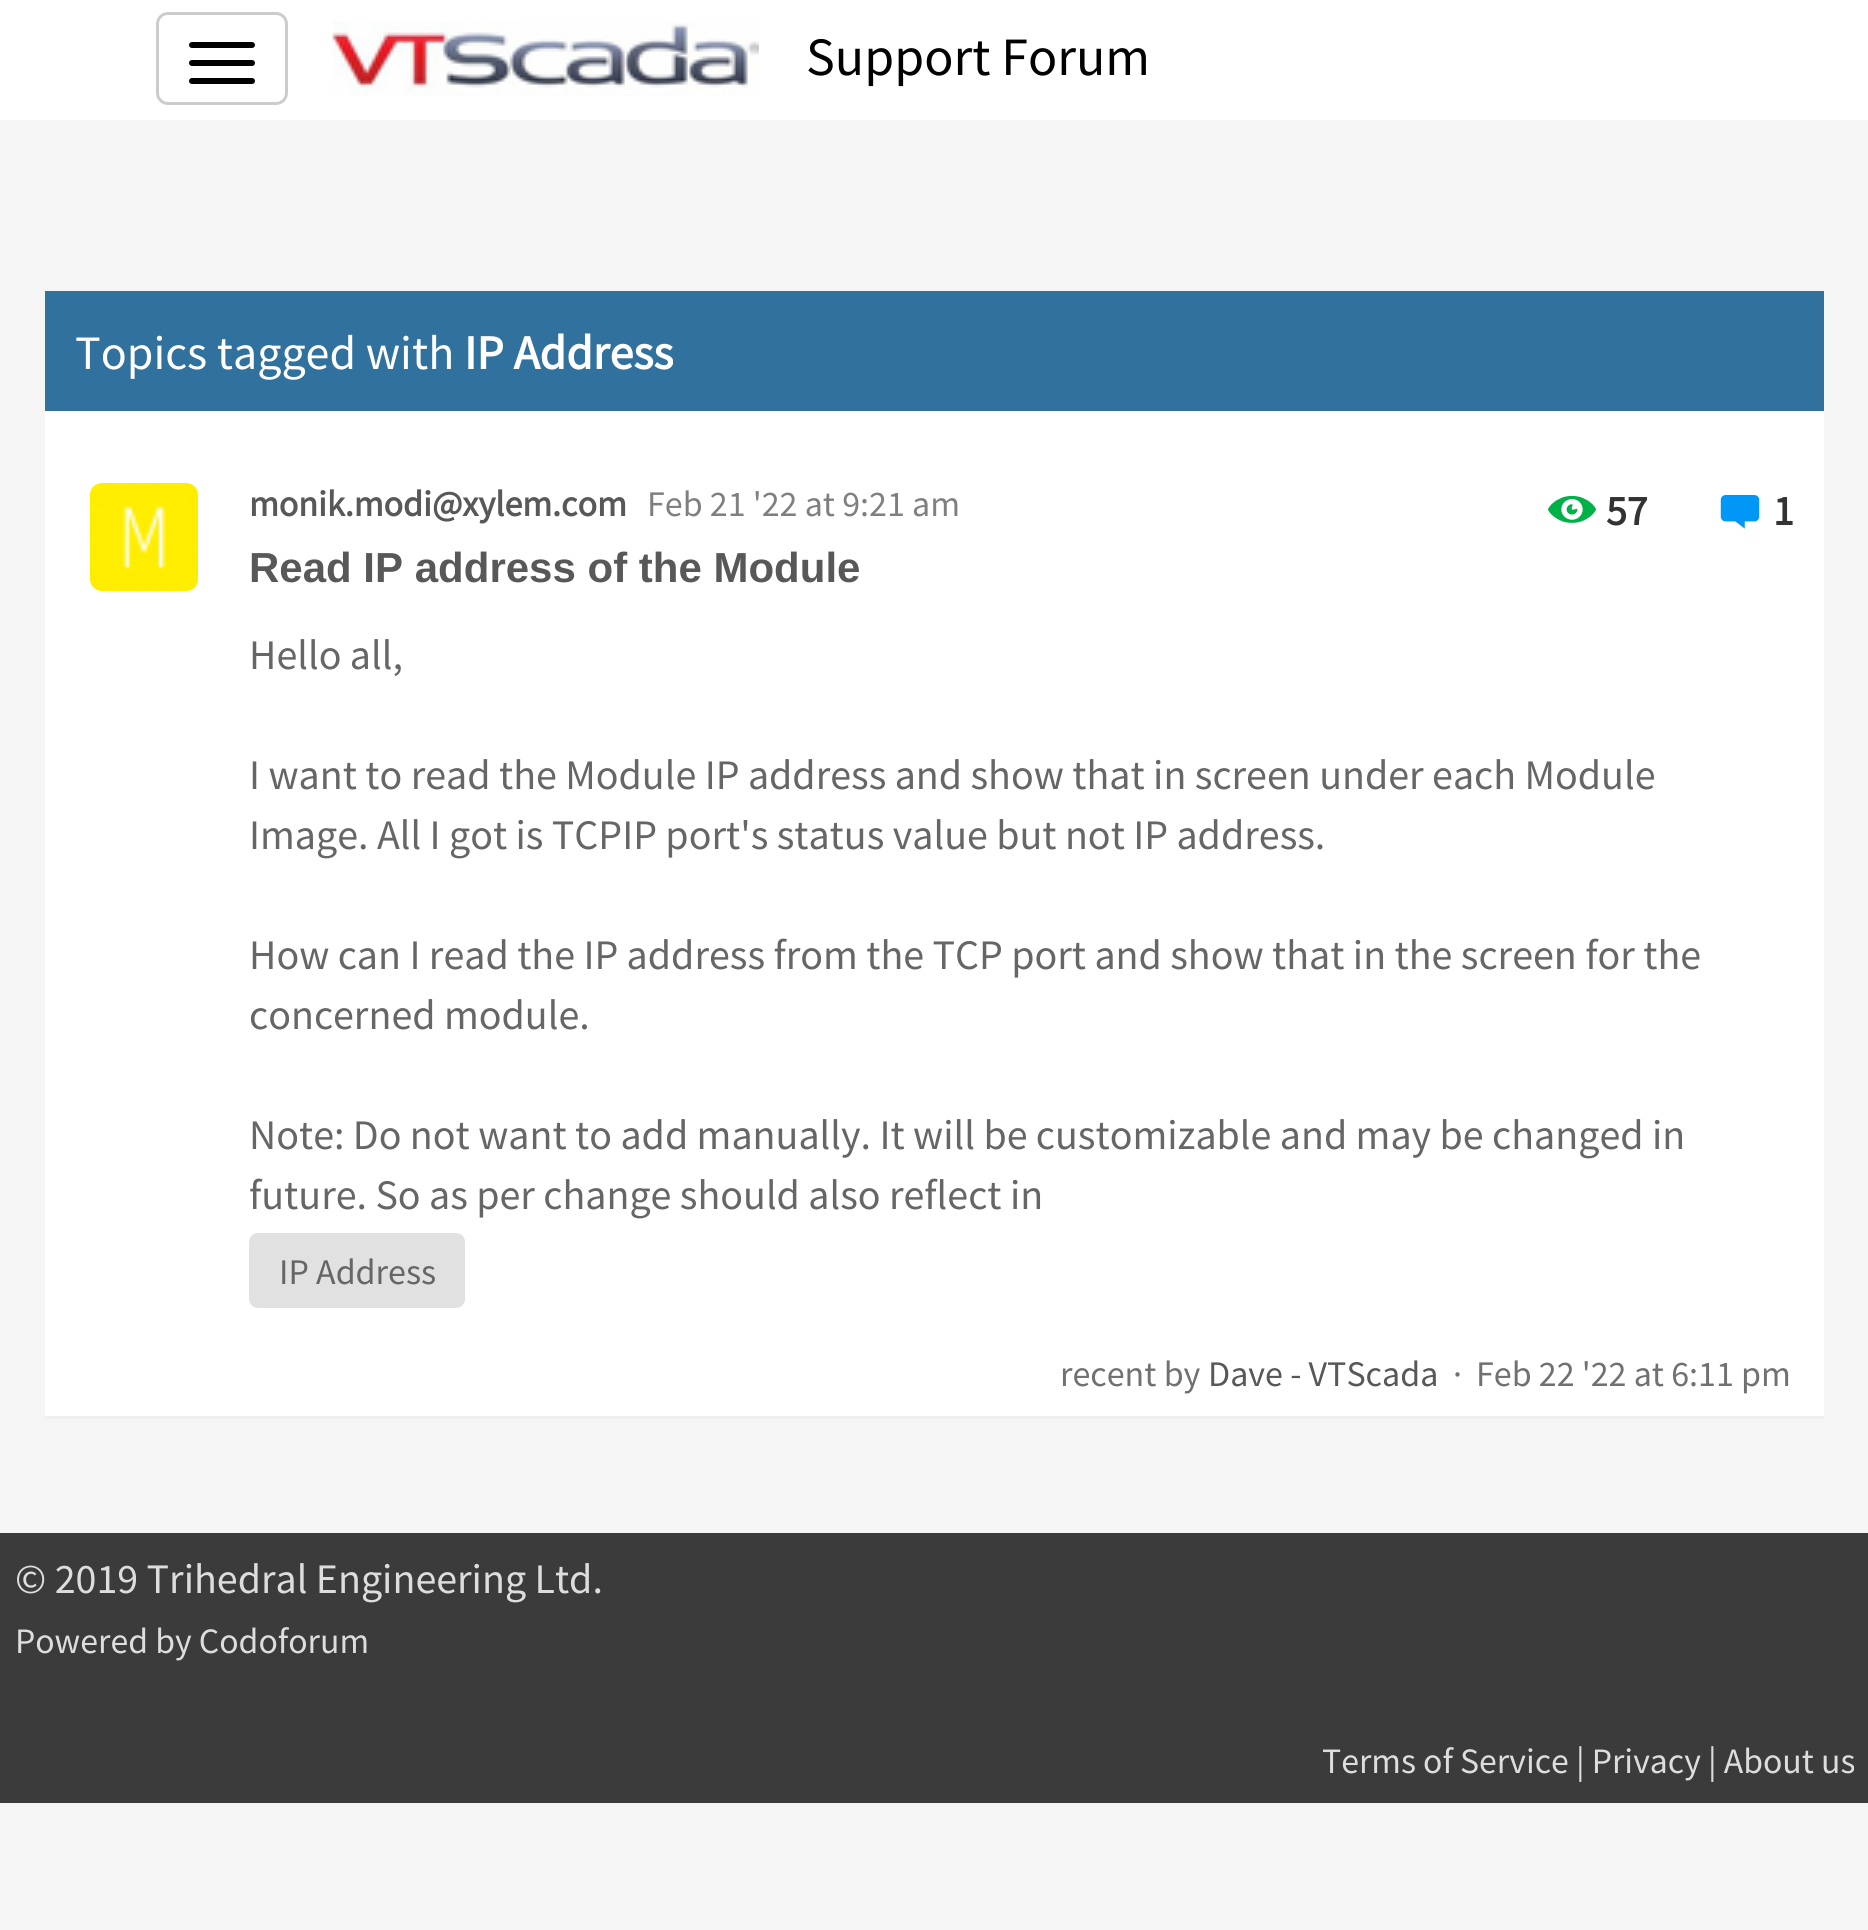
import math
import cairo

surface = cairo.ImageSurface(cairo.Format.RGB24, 1868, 1930)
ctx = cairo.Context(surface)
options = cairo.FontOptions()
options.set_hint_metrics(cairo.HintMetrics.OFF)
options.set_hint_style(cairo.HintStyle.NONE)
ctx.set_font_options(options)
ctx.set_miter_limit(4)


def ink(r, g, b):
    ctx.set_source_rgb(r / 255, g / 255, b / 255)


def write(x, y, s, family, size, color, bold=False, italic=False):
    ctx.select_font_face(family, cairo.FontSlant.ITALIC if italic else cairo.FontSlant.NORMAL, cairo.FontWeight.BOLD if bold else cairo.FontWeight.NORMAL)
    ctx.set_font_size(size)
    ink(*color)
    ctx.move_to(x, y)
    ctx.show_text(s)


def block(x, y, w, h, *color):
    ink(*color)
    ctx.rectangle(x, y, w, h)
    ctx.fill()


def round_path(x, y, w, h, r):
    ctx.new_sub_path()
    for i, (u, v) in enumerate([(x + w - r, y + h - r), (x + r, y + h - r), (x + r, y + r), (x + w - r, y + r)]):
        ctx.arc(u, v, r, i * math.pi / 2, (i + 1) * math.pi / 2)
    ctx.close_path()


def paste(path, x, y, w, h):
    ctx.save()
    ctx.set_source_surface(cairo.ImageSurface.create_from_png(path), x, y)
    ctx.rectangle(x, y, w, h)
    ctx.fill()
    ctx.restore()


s1 = dict(family="Source Sans Pro", size=54, color=(0, 0, 0))
s2 = dict(family="Source Sans Pro", size=48, color=(255, 255, 255))
s3 = dict(family="Source Sans Pro", size=48, color=(255, 255, 255), bold=True)
s4 = dict(family="Source Sans Pro", size=36, color=(88, 88, 88), bold=True)
s5 = dict(family="Source Sans Pro", size=36, color=(127, 127, 127))
s6 = dict(family="Liberation Sans", size=42, color=(88, 88, 88), bold=True)
s7 = dict(family="Source Sans Pro", size=42, color=(51, 51, 51), bold=True)
s8 = dict(family="Source Sans Pro", size=42, color=(102, 102, 102))
s9 = dict(family="Source Sans Pro", size=36, color=(102, 102, 102))
s10 = dict(family="Source Sans Pro", size=36, color=(113, 113, 113))
s11 = dict(family="Source Sans Pro", size=36, color=(88, 88, 88))
s12 = dict(family="Source Sans Pro", size=42, color=(221, 221, 221))
s13 = dict(family="Source Sans Pro", size=35.75, color=(221, 221, 221))

ink(245, 245, 245)
ctx.paint()
block(0, 0, 1868, 120, 255, 255, 255)
round_path(157.5, 13.5, 129, 90, 10.5)
ink(204, 204, 204)
ctx.set_line_width(3)
ctx.stroke()
ink(0, 0, 0)
round_path(189, 42, 66, 6, 3)
ctx.fill()
round_path(189, 60, 66, 6, 3)
ctx.fill()
round_path(189, 78, 66, 6, 3)
ctx.fill()
paste("pic1.png", 332, 21, 427, 75)
write(806, 75, "Support Forum", **s1)
block(45, 291, 1779, 120, 49, 113, 158)
write(75, 369, "Topics tagged with", **s2)
write(464, 369, "IP Address", **s3)
block(45, 411, 1779, 1005, 255, 255, 255)
block(45, 1416, 1779, 3, 239, 239, 239)
paste("pic2.png", 90, 483, 108, 108)
write(249, 516, "monik.modi@xylem.com", **s4)
write(647, 516, "Feb 21 '22 at 9:21 am", **s5)
write(249, 582, "Read IP address of the Module", **s6)
paste("pic3.png", 1548, 495, 48, 28)
write(1606, 525, "57", **s7)
paste("pic4.png", 1720, 495, 40, 34)
write(1773, 525, "1", **s7)
write(249, 669, "Hello all,", **s8)
write(249, 789, "I want to read the Module IP address and show that in screen under each Module", **s8)
write(249, 849, "Image. All I got is TCPIP port's status value but not IP address.", **s8)
write(249, 969, "How can I read the IP address from the TCP port and show that in the screen for the", **s8)
write(249, 1029, "concerned module.", **s8)
write(249, 1149, "Note: Do not want to add manually. It will be customizable and may be changed in", **s8)
write(249, 1209, "future. So as per change should also reflect in", **s8)
ink(225, 225, 225)
round_path(249, 1233, 216, 75, 9)
ctx.fill()
write(279, 1284, "IP Address", **s9)
write(1060, 1386, "recent by", **s10)
write(1208, 1386, "Dave - VTScada", **s11)
write(1453, 1386, "·", **s10)
write(1476, 1386, "Feb 22 '22 at 6:11 pm", **s10)
block(0, 1533, 1868, 270, 59, 59, 59)
write(15, 1593, "© 2019 Trihedral Engineering Ltd.", **s12)
write(15, 1653, "Powered by Codoforum", **s13)
write(1322, 1773, "Terms of Service | Privacy | About us", **s13)
surface.write_to_png("screenshot.png")
